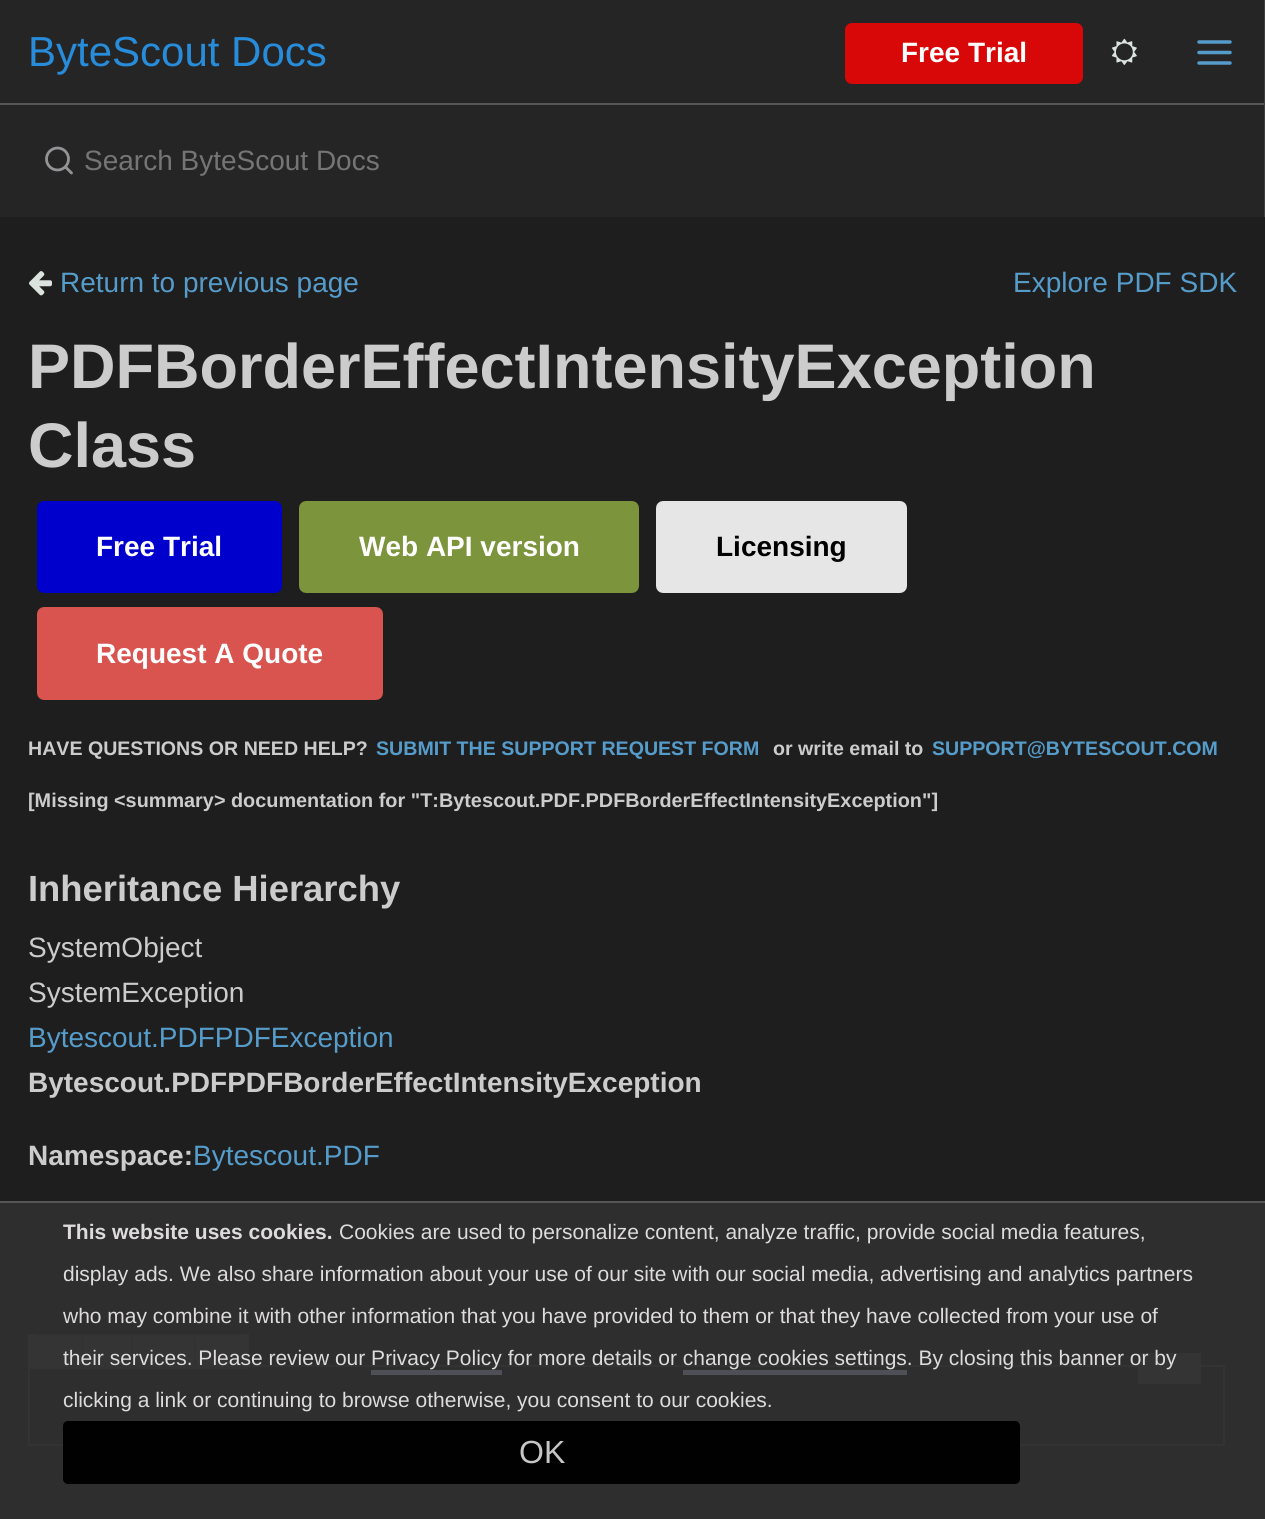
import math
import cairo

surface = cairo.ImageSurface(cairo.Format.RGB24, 1265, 1519)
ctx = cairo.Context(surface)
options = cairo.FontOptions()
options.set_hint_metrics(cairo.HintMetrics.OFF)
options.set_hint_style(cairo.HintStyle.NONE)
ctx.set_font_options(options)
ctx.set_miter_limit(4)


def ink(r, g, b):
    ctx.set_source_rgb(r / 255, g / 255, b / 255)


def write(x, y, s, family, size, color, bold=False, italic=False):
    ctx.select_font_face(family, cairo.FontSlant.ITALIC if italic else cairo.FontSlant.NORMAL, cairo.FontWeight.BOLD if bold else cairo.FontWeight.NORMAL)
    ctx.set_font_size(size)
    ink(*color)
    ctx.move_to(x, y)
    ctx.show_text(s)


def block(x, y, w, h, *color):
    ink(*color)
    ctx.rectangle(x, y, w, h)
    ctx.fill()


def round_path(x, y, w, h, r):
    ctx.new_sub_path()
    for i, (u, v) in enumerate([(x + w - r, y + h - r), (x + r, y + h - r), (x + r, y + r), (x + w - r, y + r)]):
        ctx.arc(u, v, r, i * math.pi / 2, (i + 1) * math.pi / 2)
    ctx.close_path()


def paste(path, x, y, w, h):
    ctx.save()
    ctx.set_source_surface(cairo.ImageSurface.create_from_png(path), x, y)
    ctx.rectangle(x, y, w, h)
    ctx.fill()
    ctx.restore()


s1 = dict(family="Liberation Sans", size=42, color=(39, 140, 218))
s2 = dict(family="Liberation Sans", size=28, color=(255, 255, 255), bold=True)
s3 = dict(family="Liberation Sans", size=28, color=(117, 117, 117))
s4 = dict(family="Liberation Sans", size=28, color=(86, 156, 202))
s5 = dict(family="Liberation Sans", size=63, color=(204, 204, 204), bold=True)
s6 = dict(family="Liberation Sans", size=28, color=(0, 0, 0), bold=True)
s7 = dict(family="Liberation Sans", size=19.6, color=(204, 204, 204), bold=True)
s8 = dict(family="Liberation Sans", size=19.6, color=(86, 156, 202), bold=True)
s9 = dict(family="Liberation Sans", size=19.85, color=(204, 204, 204), bold=True)
s10 = dict(family="Liberation Sans", size=36.4, color=(204, 204, 204), bold=True)
s11 = dict(family="Liberation Sans", size=28, color=(204, 204, 204))
s12 = dict(family="Liberation Sans", size=28, color=(204, 204, 204), bold=True)
s13 = dict(family="Liberation Sans", size=21, color=(221, 219, 219), bold=True)
s14 = dict(family="Liberation Sans", size=21, color=(221, 219, 219))
s15 = dict(family="Liberation Sans", size=32, color=(198, 198, 198))

ink(30, 30, 30)
ctx.paint()
block(0, 0, 1264, 217, 37, 37, 38)
block(1264, 0, 1, 217, 64, 64, 64)
block(0, 103, 1264, 2, 88, 87, 88)
write(28, 66, "ByteScout Docs", **s1)
ink(217, 8, 8)
round_path(845, 23, 238, 61, 7)
ctx.fill()
write(901, 62, "Free Trial", **s2)
paste("pic1.png", 1111, 38, 26, 27)
ctx.new_path()
ctx.move_to(1199, 52.5)
ctx.line_to(1230, 52.5)
ctx.move_to(1199, 42)
ctx.line_to(1230, 42)
ctx.move_to(1199, 63)
ctx.line_to(1230, 63)
ink(86, 156, 202)
ctx.set_line_width(3.5)
ctx.set_line_cap(cairo.LineCap.ROUND)
ctx.set_line_join(cairo.LineJoin.ROUND)
ctx.stroke()
ctx.arc(57.5, 159, 11, 0, 2 * math.pi)
ink(149, 147, 150)
ctx.set_line_width(2.8)
ctx.set_line_cap(cairo.LineCap.BUTT)
ctx.set_line_join(cairo.LineJoin.MITER)
ctx.stroke()
ctx.new_path()
ctx.move_to(71.5, 173)
ctx.line_to(65.5, 167)
ctx.set_line_cap(cairo.LineCap.ROUND)
ctx.set_line_join(cairo.LineJoin.ROUND)
ctx.stroke()
write(84, 170, "Search ByteScout Docs", **s3)
paste("pic2.png", 29, 271, 23, 25)
write(60, 292, "Return to previous page", **s4)
write(1013, 292, "Explore PDF SDK", **s4)
write(28, 388, "PDFBorderEffectIntensityException", **s5)
write(28, 467, "Class", **s5)
ink(0, 0, 204)
round_path(40.5, 504.5, 238, 85, 3.5)
ctx.fill_preserve()
ctx.set_line_width(7)
ctx.set_line_cap(cairo.LineCap.BUTT)
ctx.set_line_join(cairo.LineJoin.MITER)
ctx.stroke()
write(96, 556, "Free Trial", **s2)
ink(124, 148, 59)
round_path(302.5, 504.5, 333, 85, 3.5)
ctx.fill_preserve()
ctx.stroke()
write(359, 556, "Web API version", **s2)
ink(230, 230, 230)
round_path(659.5, 504.5, 244, 85, 3.5)
ctx.fill_preserve()
ctx.stroke()
write(716, 556, "Licensing", **s6)
ink(217, 83, 79)
round_path(40.5, 610.5, 339, 86, 3.5)
ctx.fill_preserve()
ctx.stroke()
write(96, 663, "Request A Quote", **s2)
write(28, 755, "HAVE QUESTIONS OR NEED HELP?", **s7)
write(376, 755, "SUBMIT THE SUPPORT REQUEST FORM", **s8)
write(773, 755, "or write email to", **s7)
write(932, 755, "SUPPORT@BYTESCOUT.COM", **s8)
write(28, 807, "[Missing <summary> documentation for \"T:Bytescout.PDF.PDFBorderEffectIntensityException\"]", **s9)
write(28, 901, "Inheritance Hierarchy", **s10)
write(28, 957, "SystemObject", **s11)
write(28, 1002, "SystemException", **s11)
write(28, 1047, "Bytescout.PDFPDFException", **s4)
write(28, 1092, "Bytescout.PDFPDFBorderEffectIntensityException", **s12)
write(28, 1165, "Namespace:", **s12)
write(193, 1165, "Bytescout.PDF", **s4)
block(1223, 1365, 2, 81, 229, 229, 229)
block(28, 1444, 1197, 2, 229, 229, 229)
block(28, 1365, 2, 81, 229, 229, 229)
block(28, 1334, 9, 33, 239, 245, 255)
block(28, 1367, 221, 2, 208, 210, 210)
block(37, 1336, 45, 31, 239, 245, 255)
block(37, 1334, 203, 2, 187, 187, 187)
block(84, 1336, 47, 31, 239, 245, 255)
block(82, 1334, 2, 35, 187, 187, 187)
block(133, 1336, 61, 31, 239, 245, 255)
block(131, 1334, 2, 35, 187, 187, 187)
block(196, 1336, 44, 31, 239, 245, 255)
block(194, 1334, 2, 35, 187, 187, 187)
block(240, 1334, 9, 33, 239, 245, 255)
block(249, 1365, 974, 2, 229, 229, 229)
block(1138, 1353, 63, 31, 255, 255, 255)
ctx.set_source_rgba(0.184, 0.184, 0.184, 0.97)
ctx.rectangle(0, 1201, 1265, 318)
ctx.fill()
ctx.set_source_rgba(0.345, 0.341, 0.345, 0.97)
ctx.rectangle(0, 1201, 1265, 2)
ctx.fill()
write(63, 1239, "This website uses cookies.", **s13)
write(339, 1239, "Cookies are used to personalize content, analyze traffic, provide social media features,", **s14)
write(63, 1281, "display ads. We also share information about your use of our site with our social media, advertising and analytics partners", **s14)
write(63, 1323, "who may combine it with other information that you have provided to them or that they have collected from your use of", **s14)
write(63, 1365, "their services. Please review our Privacy Policy for more details or change cookies settings. By closing this banner or by", **s14)
block(371, 1370, 131, 5, 79, 79, 88)
block(683, 1370, 224, 5, 79, 79, 88)
write(63, 1407, "clicking a link or continuing to browse otherwise, you consent to our cookies.", **s14)
ctx.set_source_rgba(0, 0, 0, 0.97)
round_path(63, 1421, 957, 63, 5)
ctx.fill()
write(519, 1463, "OK", **s15)
surface.write_to_png("screenshot.png")
